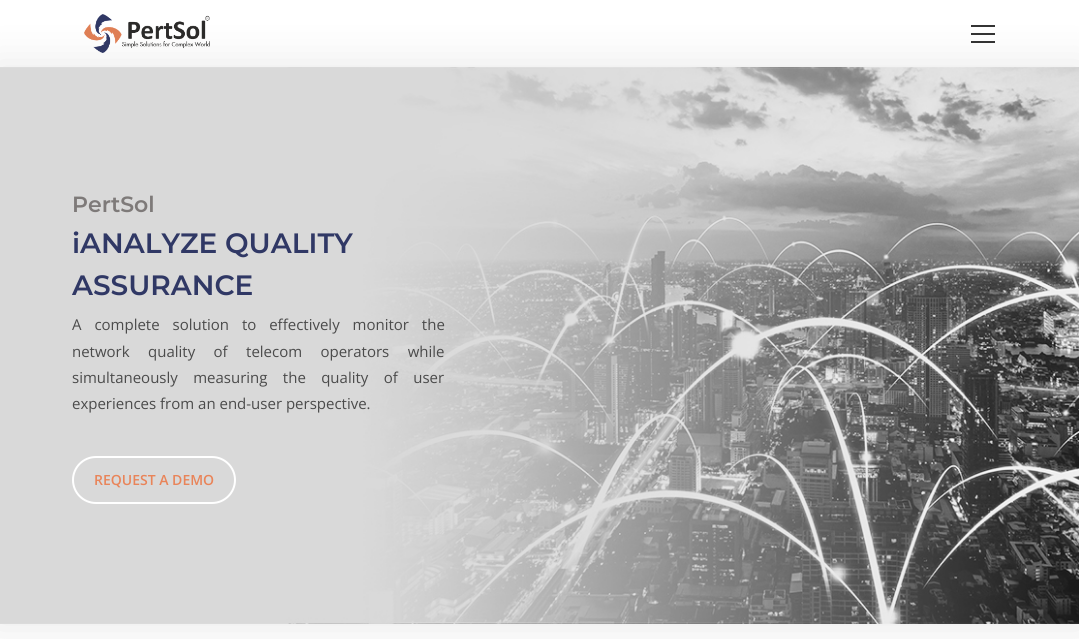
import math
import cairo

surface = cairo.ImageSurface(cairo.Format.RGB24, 1079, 639)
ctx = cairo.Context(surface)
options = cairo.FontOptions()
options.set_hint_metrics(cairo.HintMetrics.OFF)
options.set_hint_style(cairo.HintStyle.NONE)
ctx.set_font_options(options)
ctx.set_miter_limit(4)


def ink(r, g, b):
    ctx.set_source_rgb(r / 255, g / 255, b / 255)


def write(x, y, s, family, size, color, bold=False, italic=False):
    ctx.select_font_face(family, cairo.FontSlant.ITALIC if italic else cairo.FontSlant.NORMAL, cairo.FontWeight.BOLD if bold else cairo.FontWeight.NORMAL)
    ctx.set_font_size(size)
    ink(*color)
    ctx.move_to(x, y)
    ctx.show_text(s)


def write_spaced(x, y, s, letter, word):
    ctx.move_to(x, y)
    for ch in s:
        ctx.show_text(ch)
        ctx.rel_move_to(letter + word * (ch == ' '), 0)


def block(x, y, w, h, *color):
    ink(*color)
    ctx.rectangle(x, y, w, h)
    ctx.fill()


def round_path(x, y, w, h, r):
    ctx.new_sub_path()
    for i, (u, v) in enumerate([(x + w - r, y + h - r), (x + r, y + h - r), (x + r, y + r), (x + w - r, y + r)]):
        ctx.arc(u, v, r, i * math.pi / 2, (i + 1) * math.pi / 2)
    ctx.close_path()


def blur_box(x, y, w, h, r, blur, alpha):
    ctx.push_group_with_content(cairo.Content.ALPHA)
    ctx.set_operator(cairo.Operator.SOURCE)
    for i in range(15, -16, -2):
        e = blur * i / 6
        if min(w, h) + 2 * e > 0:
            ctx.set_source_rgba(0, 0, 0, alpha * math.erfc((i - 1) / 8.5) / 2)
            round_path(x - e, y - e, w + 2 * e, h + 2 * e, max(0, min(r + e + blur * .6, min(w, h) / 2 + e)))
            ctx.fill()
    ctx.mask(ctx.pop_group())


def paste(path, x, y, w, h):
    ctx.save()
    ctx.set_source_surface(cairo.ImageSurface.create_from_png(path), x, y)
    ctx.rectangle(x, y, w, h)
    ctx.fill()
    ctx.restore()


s1 = dict(family="Montserrat SemiBold", size=22, color=(126, 122, 121))
s2 = dict(family="Montserrat SemiBold", size=28, color=(48, 56, 101))
s3 = dict(family="Open Sans", size=15, color=(75, 75, 75))
s4 = dict(family="Open Sans SemiBold", size=14, color=(233, 132, 89))

ink(255, 255, 255)
ctx.paint()
ink(51, 51, 51)
blur_box(-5, 62, 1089, 567, 0, 20, 0.1)
paste("pic1.png", 84, 14, 126, 39)
block(971, 33, 24, 2, 51, 51, 51)
block(971, 25, 24, 2, 51, 51, 51)
block(971, 41, 24, 2, 51, 51, 51)
paste("pic2.png", 0, 67, 1079, 557)
write(72, 212, "PertSol", **s1)
write(72, 253, "iANALYZE QUALITY", **s2)
write(72, 295, "ASSURANCE", **s2)
ctx.select_font_face("Open Sans")
ctx.set_font_size(15)
ink(75, 75, 75)
write_spaced(72, 330, "A complete solution to effectively monitor the", 0, 9)
write_spaced(72, 357, "network quality of telecom operators while", 0, 14.5)
write_spaced(72, 383, "simultaneously measuring the quality of user", 0, 11.5)
write(72, 409, "experiences from an end-user perspective.", **s3)
round_path(73, 457, 162, 46, 23)
ink(255, 255, 255)
ctx.stroke()
write(94, 485, "REQUEST A DEMO", **s4)
surface.write_to_png("screenshot.png")
